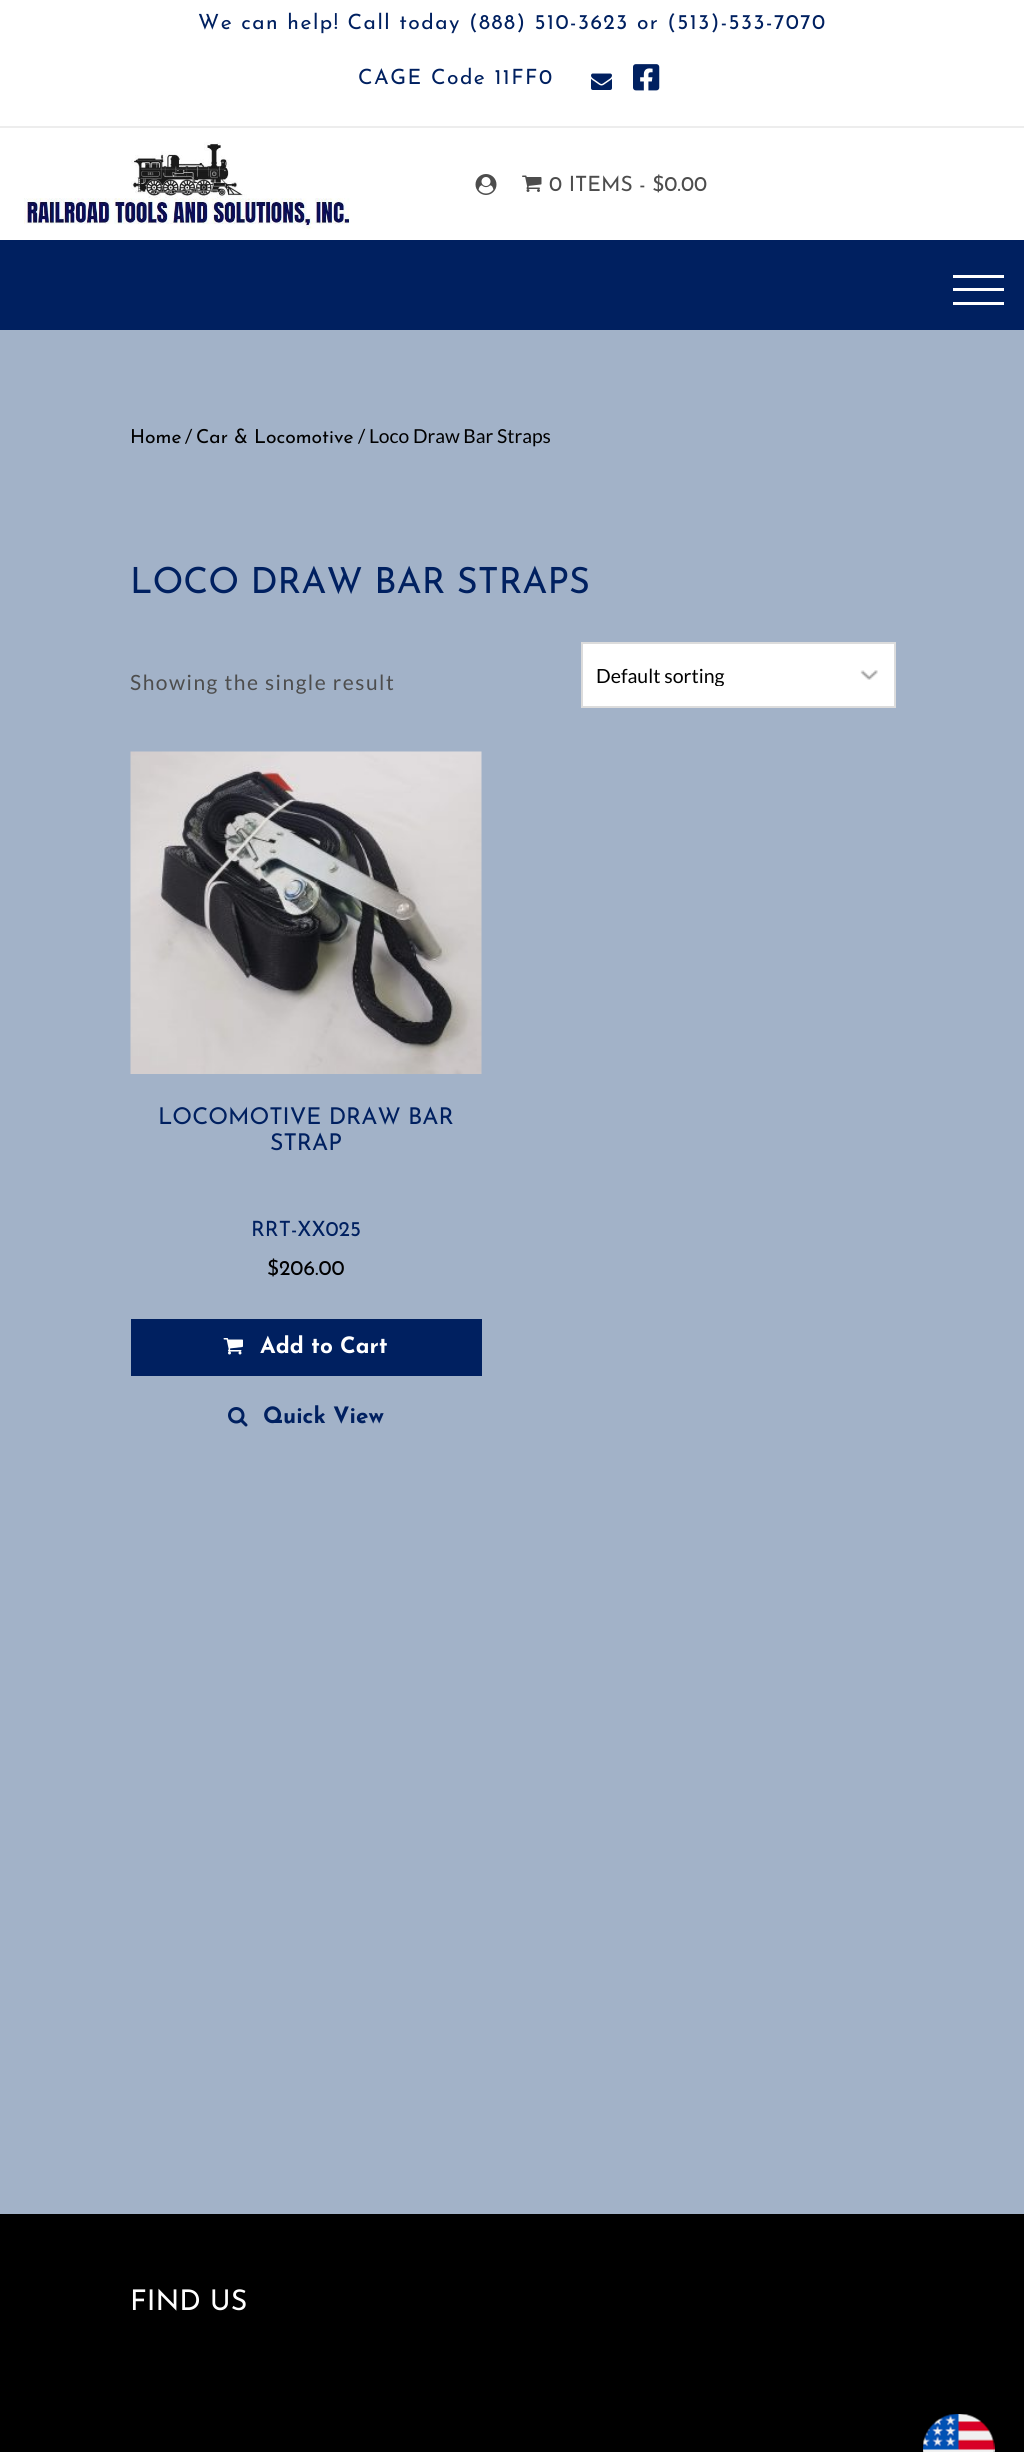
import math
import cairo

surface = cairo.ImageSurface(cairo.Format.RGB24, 1024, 2452)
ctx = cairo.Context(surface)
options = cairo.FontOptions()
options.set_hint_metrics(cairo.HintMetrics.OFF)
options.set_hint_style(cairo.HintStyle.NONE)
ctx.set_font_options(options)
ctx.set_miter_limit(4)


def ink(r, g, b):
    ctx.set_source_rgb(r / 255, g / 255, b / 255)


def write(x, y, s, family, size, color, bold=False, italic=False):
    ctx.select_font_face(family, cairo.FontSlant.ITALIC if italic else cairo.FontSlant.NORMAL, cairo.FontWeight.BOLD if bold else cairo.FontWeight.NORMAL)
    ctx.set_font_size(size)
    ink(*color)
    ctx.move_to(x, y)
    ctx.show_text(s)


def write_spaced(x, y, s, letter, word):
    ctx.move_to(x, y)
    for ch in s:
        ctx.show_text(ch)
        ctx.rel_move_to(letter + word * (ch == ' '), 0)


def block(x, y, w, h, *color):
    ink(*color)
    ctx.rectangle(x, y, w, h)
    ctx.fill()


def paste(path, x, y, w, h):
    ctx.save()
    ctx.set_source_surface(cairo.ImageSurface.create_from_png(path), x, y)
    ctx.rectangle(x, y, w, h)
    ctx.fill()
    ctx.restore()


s1 = dict(family="Josefin Sans", size=21, color=(77, 77, 77))
s2 = dict(family="Josefin Sans", size=19.25, color=(0, 0, 0))
s3 = dict(family="Lato", size=19.25, color=(0, 0, 0))
s4 = dict(family="Josefin Sans", size=36, color=(0, 32, 96))
s5 = dict(family="Lato", size=19.5, color=(0, 0, 0))
s6 = dict(family="Josefin Sans", size=23.1, color=(0, 32, 96))
s7 = dict(family="Josefin Sans", size=21, color=(0, 32, 96))
s8 = dict(family="Josefin Sans", size=21, color=(0, 0, 0))
s9 = dict(family="Josefin Sans", size=22.5, color=(255, 255, 255), bold=True)
s10 = dict(family="Josefin Sans", size=22.5, color=(0, 32, 96), bold=True)
s11 = dict(family="Josefin Sans", size=28.5, color=(255, 255, 255))

ink(162, 178, 200)
ctx.paint()
block(0, 0, 1024, 126, 255, 255, 255)
block(0, 126, 1024, 2, 237, 237, 237)
ctx.select_font_face("Josefin Sans")
ctx.set_font_size(21)
ink(0, 32, 96)
write_spaced(198, 29, "We can help! Call today (888) 510-3623 or (513)-533-7070", 1.5, 0)
write_spaced(358, 84, "CAGE Code 11FF0", 1.5, 0)
paste("pic1.png", 591, 73, 21, 17)
paste("pic2.png", 633, 64, 27, 27)
block(0, 128, 1024, 112, 255, 255, 255)
paste("pic3.png", 24, 142, 326, 87)
paste("pic4.png", 475, 174, 22, 21)
paste("pic5.png", 522, 175, 20, 17)
write(549, 191, "0 ITEMS - $0.00", **s1)
block(0, 240, 1024, 90, 0, 32, 96)
block(953, 275, 51, 3, 255, 255, 255)
block(953, 288, 51, 3, 255, 255, 255)
block(953, 302, 51, 3, 255, 255, 255)
write(130, 443, "Home", **s2)
write(185, 443, "/", **s3)
write(196, 443, "Car & Locomotive", **s2)
write(358, 443, "/ Loco Draw Bar Straps", **s3)
write(130, 593, "LOCO DRAW BAR STRAPS", **s4)
ctx.select_font_face("Lato")
ctx.set_font_size(21)
ink(77, 77, 77)
write_spaced(130, 690, "Showing the single result", 1.5, 0)
block(583, 644, 311, 62, 255, 255, 255)
paste("pic6.png", 860, 670, 18, 10)
ctx.rectangle(582, 643, 313, 64)
ink(220, 220, 220)
ctx.stroke()
ctx.save()
ctx.rectangle(597, 666, 297, 20)
ctx.clip()
write(596, 683, "Default sorting", **s5)
ctx.restore()
paste("pic7.png", 130, 751, 352, 323)
write(158, 1124, "LOCOMOTIVE DRAW BAR", **s6)
write(270, 1150, "STRAP", **s6)
write(251, 1236, "RRT-XX025", **s7)
write(267, 1275, "$206.00", **s8)
block(131, 1319, 351, 57, 0, 32, 96)
paste("pic8.png", 223, 1338, 20, 17)
write(260, 1353, "Add to Cart", **s9)
paste("pic9.png", 228, 1407, 20, 20)
write(263, 1423, "Quick View", **s10)
block(0, 2214, 1024, 238, 0, 0, 0)
write(130, 2310, "FIND US", **s11)
paste("pic10.png", 923, 2414, 72, 38)
surface.write_to_png("screenshot.png")
